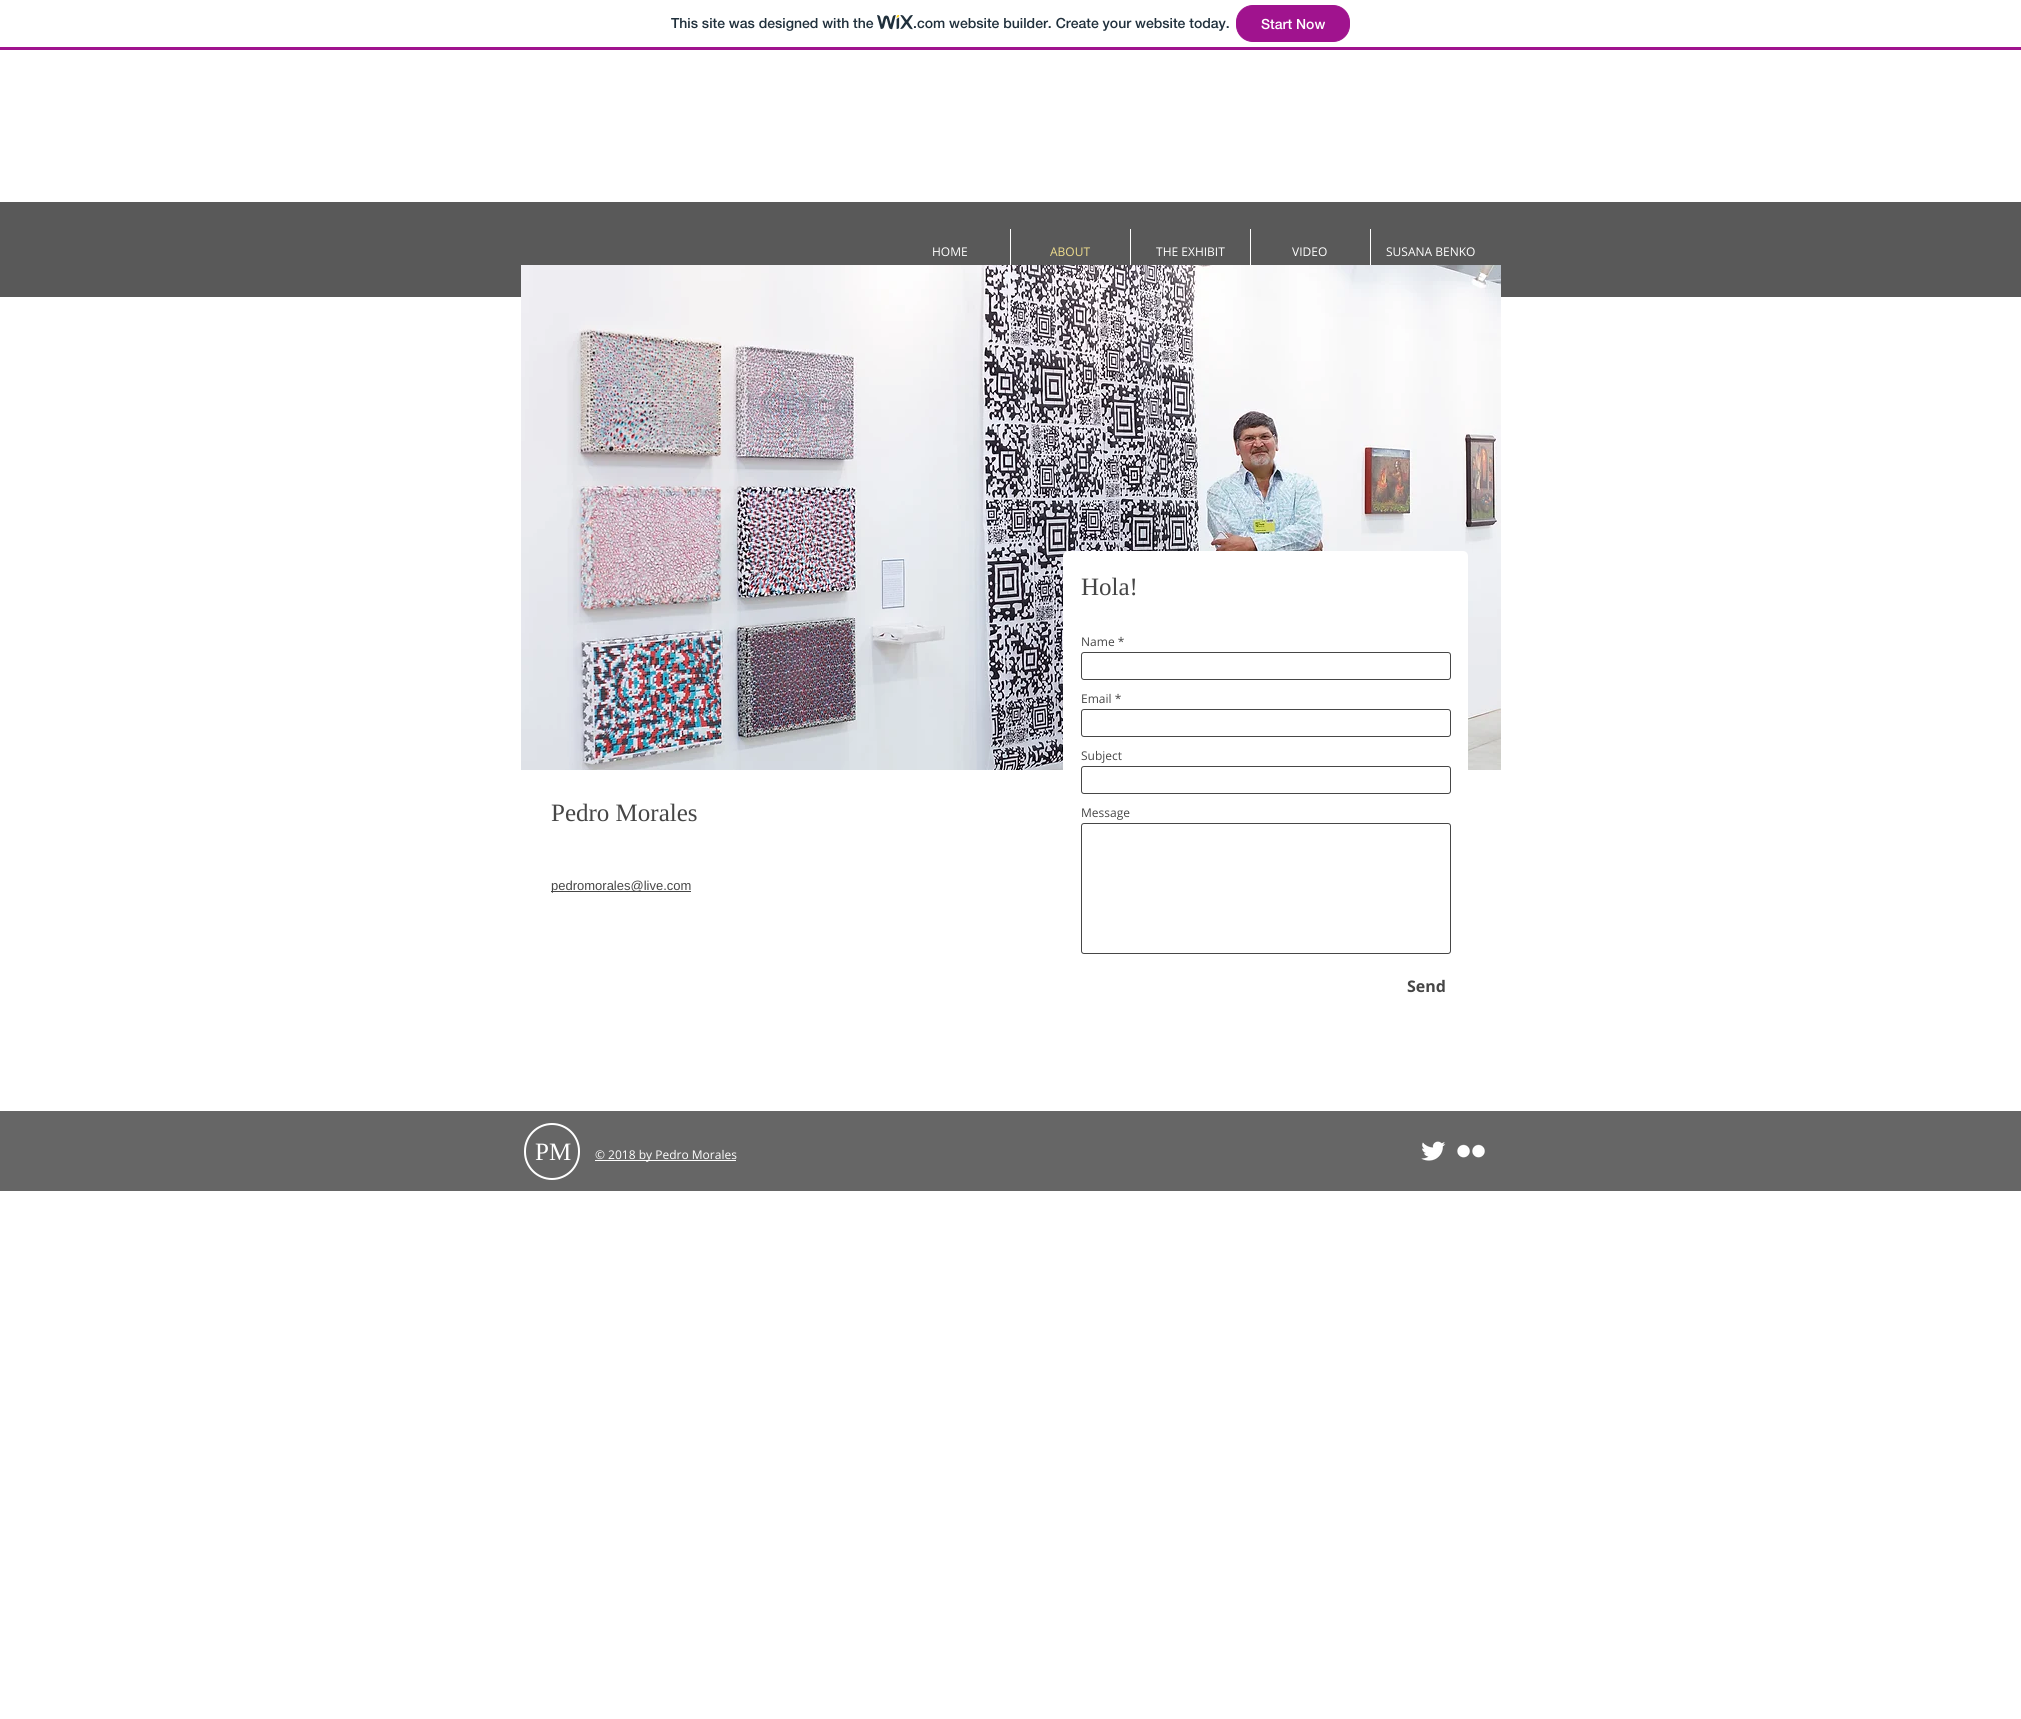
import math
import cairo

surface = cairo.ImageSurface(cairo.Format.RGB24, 2021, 1719)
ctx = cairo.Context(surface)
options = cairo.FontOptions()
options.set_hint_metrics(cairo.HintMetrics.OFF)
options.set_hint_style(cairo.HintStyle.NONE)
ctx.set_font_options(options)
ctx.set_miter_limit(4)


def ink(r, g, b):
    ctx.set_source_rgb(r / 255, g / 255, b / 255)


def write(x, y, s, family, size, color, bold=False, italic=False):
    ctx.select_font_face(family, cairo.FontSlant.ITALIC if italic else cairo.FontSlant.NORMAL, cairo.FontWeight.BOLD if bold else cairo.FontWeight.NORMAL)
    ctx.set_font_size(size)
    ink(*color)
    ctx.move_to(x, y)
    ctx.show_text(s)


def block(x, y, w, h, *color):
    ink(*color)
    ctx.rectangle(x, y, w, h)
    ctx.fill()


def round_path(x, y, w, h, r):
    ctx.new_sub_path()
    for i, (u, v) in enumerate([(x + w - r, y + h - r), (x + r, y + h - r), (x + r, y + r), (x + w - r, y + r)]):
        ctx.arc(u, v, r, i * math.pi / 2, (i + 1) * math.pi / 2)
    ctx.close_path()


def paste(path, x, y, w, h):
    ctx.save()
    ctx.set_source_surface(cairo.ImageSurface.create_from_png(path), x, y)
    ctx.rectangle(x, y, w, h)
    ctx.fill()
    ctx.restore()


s1 = dict(family="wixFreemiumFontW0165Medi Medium", size=14, color=(32, 48, 60))
s2 = dict(family="wixFreemiumFontW0165Medi Medium", size=14, color=(255, 255, 255))
s3 = dict(family="Open Sans", size=12, color=(255, 255, 255))
s4 = dict(family="Open Sans", size=12, color=(239, 221, 141))
s5 = dict(family="Liberation Serif", size=25, color=(70, 70, 70))
s6 = dict(family="Open Sans", size=12, color=(70, 70, 70))
s7 = dict(family="Open Sans", size=16, color=(70, 70, 70), bold=True)
s8 = dict(family="Liberation Sans", size=13, color=(70, 70, 70))
s9 = dict(family="Liberation Serif", size=25, color=(255, 255, 255))

ink(255, 255, 255)
ctx.paint()
block(0, 47, 2021, 3, 160, 19, 142)
write(671, 28, "This site was designed with the", **s1)
paste("pic1.png", 877, 15, 36, 15)
write(913, 28, ".com website builder. Create your website today.", **s1)
ink(160, 19, 142)
round_path(1236.5, 5.5, 113, 36, 16.5)
ctx.fill_preserve()
ctx.set_line_width(1)
ctx.stroke()
write(1261, 29, "Start Now", **s2)
block(0, 202, 2021, 95, 89, 89, 89)
write(932, 256, "HOME", **s3)
block(1010, 229, 1, 44, 255, 255, 255)
write(1050, 256, "ABOUT", **s4)
block(1130, 229, 1, 44, 255, 255, 255)
write(1156, 256, "THE EXHIBIT", **s3)
block(1250, 229, 1, 44, 255, 255, 255)
write(1292, 256, "VIDEO", **s3)
block(1370, 229, 1, 44, 255, 255, 255)
write(1386, 256, "SUSANA BENKO", **s3)
round_path(521.5, 265.5, 979, 775, 4.5)
ctx.fill_preserve()
ctx.stroke()
paste("pic2.png", 521, 265, 980, 505)
round_path(1063, 551, 405, 465, 5)
ctx.fill()
write(1081, 595, "Hola!", **s5)
write(551, 821, "Pedro Morales", **s5)
write(1081, 646, "Name *", **s6)
round_path(1081.5, 652.5, 369, 27, 2.5)
ctx.stroke()
write(1081, 703, "Email *", **s6)
round_path(1081.5, 709.5, 369, 27, 2.5)
ctx.stroke()
write(1081, 760, "Subject", **s6)
round_path(1081.5, 766.5, 369, 27, 2.5)
ctx.stroke()
write(1081, 817, "Message", **s6)
round_path(1081.5, 823.5, 369, 130, 2.5)
ctx.stroke()
write(1407, 992, "Send", **s7)
block(551, 891, 140, 1, 70, 70, 70)
write(551, 890, "pedromorales@live.com", **s8)
block(0, 1111, 2021, 80, 102, 102, 102)
round_path(525, 1124, 54, 55, 27)
ink(255, 255, 255)
ctx.set_line_width(2)
ctx.stroke()
write(535, 1160, "PM", **s9)
block(595, 1160, 141, 1, 255, 255, 255)
write(595, 1159, "© 2018 by Pedro Morales", **s3)
paste("pic3.png", 1421, 1141, 25, 20)
paste("pic4.png", 1457, 1144, 28, 14)
surface.write_to_png("screenshot.png")
